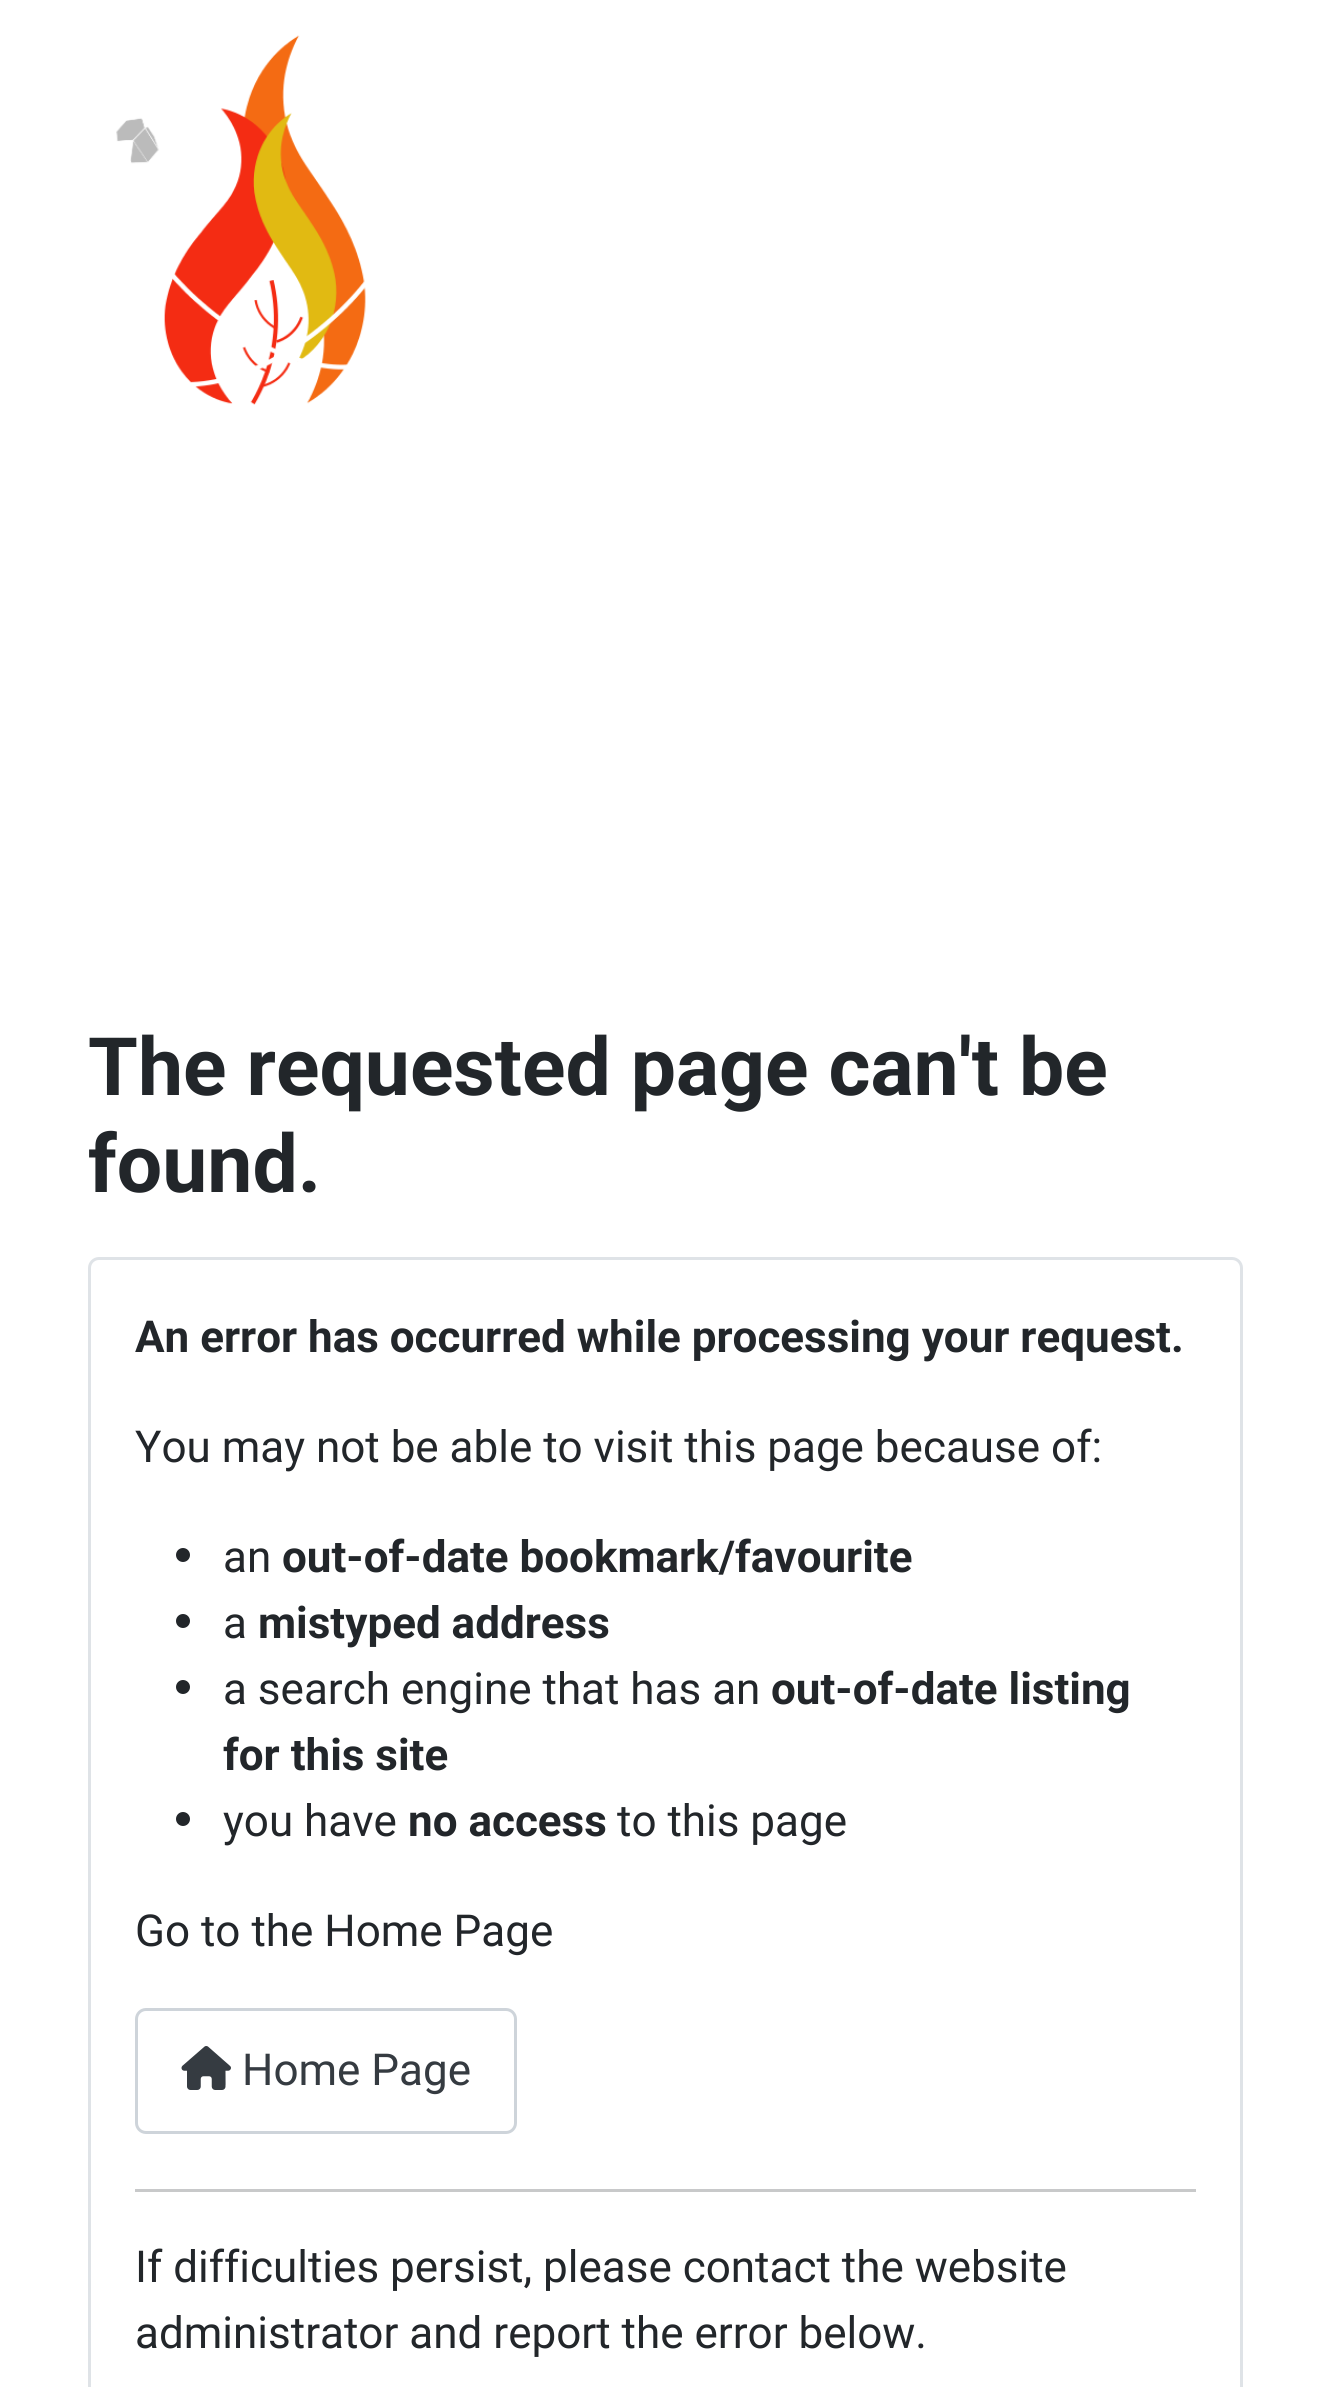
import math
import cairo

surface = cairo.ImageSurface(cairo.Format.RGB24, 1331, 2387)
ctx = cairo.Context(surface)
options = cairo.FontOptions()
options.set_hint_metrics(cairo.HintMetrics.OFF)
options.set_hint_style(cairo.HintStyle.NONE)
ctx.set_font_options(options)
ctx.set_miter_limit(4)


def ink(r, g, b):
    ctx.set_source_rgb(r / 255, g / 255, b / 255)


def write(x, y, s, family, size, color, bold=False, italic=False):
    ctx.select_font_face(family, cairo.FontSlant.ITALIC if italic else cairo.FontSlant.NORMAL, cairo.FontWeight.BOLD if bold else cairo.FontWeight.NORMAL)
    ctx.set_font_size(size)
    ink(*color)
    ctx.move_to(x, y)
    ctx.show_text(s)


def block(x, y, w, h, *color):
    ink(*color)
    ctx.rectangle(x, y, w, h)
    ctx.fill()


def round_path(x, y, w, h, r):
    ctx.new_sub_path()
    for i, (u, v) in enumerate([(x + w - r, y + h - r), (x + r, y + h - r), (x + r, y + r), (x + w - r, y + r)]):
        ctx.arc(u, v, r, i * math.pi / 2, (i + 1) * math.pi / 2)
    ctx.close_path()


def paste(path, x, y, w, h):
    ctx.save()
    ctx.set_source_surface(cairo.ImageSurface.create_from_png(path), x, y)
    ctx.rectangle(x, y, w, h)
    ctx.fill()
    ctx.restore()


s1 = dict(family="Roboto", size=80.5, color=(34, 38, 42), bold=True)
s2 = dict(family="Roboto", size=44, color=(34, 38, 42), bold=True)
s3 = dict(family="Roboto", size=44, color=(34, 38, 42))
s4 = dict(family="Roboto", size=44, color=(53, 59, 65))

ink(255, 255, 255)
ctx.paint()
paste("pic1.png", 116, 35, 250, 370)
write(88, 1095, "The requested page can't be", **s1)
write(88, 1192, "found.", **s1)
round_path(89.5, 1258.5, 1152, 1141, 9.5)
ink(223, 227, 231)
ctx.set_line_width(3)
ctx.stroke()
write(135, 1352, "An error has occurred while processing your request.", **s2)
write(135, 1462, "You may not be able to visit this page because of:", **s3)
ctx.new_path()
ctx.arc(183, 1555, 7, 0, 2 * math.pi)
ctx.fill()
write(223, 1572, "an", **s3)
write(282, 1572, "out-of-date bookmark/favourite", **s2)
ctx.new_path()
ctx.arc(183, 1621, 7, 0, 2 * math.pi)
ctx.fill()
write(223, 1638, "a", **s3)
write(258, 1638, "mistyped address", **s2)
ctx.new_path()
ctx.arc(183, 1687, 7, 0, 2 * math.pi)
ctx.fill()
write(223, 1704, "a search engine that has an", **s3)
write(771, 1704, "out-of-date listing", **s2)
write(223, 1770, "for this site", **s2)
ctx.new_path()
ctx.arc(183, 1819, 7, 0, 2 * math.pi)
ctx.fill()
write(223, 1836, "you have", **s3)
write(408, 1836, "no access", **s2)
write(617, 1836, "to this page", **s3)
write(135, 1946, "Go to the Home Page", **s3)
round_path(136.5, 2009.5, 379, 123, 9.5)
ink(206, 212, 218)
ctx.stroke()
paste("pic2.png", 181, 2046, 50, 44)
write(242, 2085, "Home Page", **s4)
block(135, 2189, 1061, 3, 200, 201, 202)
write(135, 2282, "If difficulties persist, please contact the website", **s3)
write(135, 2348, "administrator and report the error below.", **s3)
surface.write_to_png("screenshot.png")
